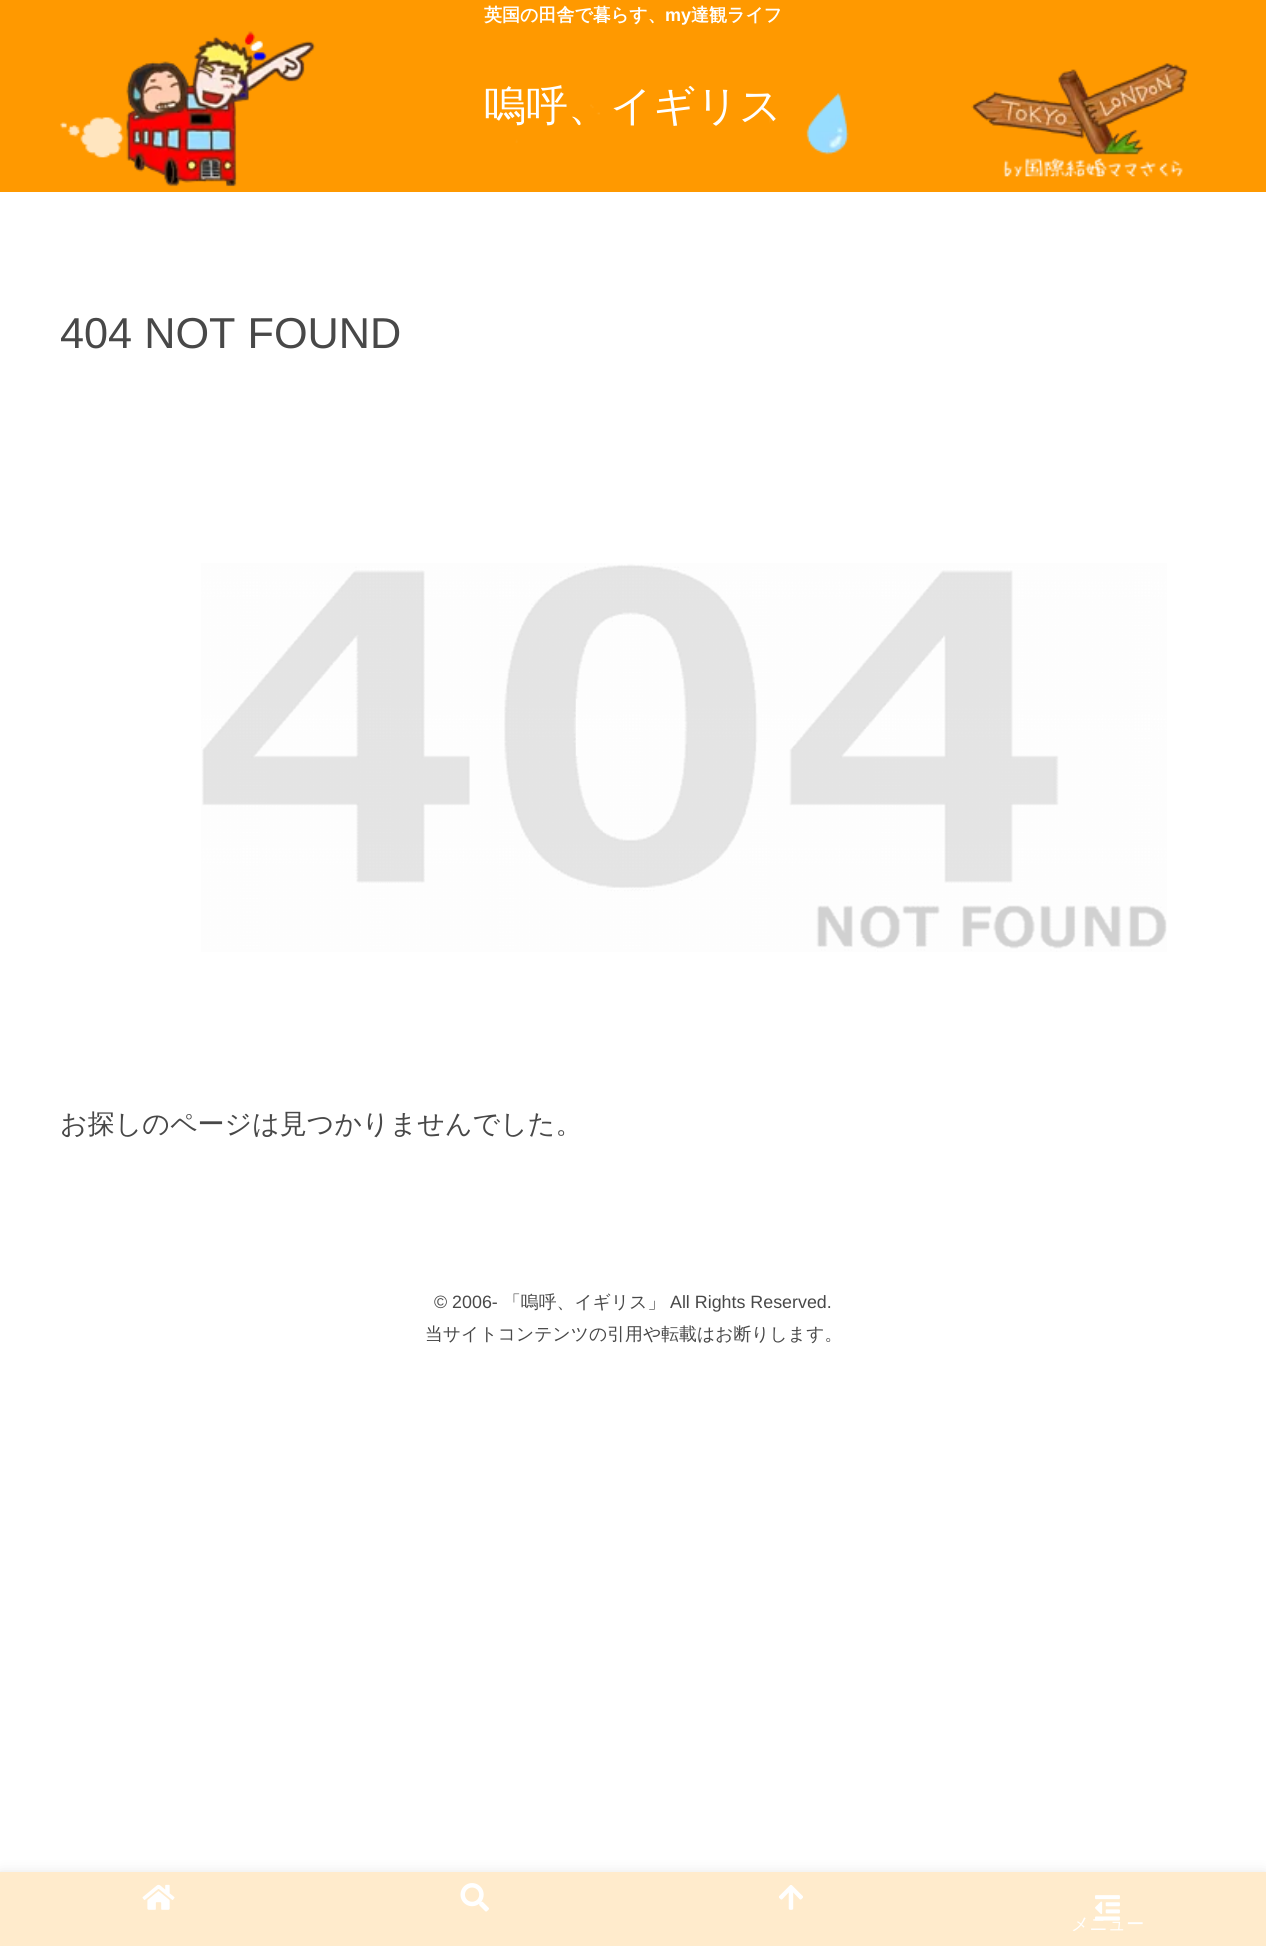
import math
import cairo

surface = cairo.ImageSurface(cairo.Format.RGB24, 1266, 1946)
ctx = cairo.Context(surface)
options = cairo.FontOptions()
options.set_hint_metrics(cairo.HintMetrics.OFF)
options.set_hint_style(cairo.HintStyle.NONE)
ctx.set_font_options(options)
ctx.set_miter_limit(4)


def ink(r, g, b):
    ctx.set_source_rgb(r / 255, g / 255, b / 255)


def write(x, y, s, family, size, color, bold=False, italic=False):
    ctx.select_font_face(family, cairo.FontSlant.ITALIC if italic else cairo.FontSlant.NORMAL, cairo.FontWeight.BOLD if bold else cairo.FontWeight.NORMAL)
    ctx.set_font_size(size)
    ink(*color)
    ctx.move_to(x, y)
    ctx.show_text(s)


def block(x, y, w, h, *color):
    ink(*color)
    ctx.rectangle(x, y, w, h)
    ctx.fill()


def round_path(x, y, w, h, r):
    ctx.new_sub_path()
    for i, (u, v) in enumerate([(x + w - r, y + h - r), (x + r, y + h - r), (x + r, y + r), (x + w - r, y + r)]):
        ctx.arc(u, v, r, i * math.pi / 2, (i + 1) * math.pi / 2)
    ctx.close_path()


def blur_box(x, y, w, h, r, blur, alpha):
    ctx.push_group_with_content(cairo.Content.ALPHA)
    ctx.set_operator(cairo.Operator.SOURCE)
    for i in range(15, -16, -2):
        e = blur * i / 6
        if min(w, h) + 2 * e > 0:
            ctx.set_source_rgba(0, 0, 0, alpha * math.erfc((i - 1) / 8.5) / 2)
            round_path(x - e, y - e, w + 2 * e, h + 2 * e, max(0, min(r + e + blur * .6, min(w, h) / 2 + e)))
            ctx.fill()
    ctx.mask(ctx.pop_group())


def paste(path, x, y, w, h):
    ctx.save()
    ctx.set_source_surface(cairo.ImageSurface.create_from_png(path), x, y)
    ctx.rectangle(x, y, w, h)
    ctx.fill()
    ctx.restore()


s1 = dict(family="WenQuanYi Zen Hei", size=18, color=(255, 255, 255), bold=True)
s2 = dict(family="Liberation Sans", size=18, color=(255, 255, 255), bold=True)
s3 = dict(family="WenQuanYi Zen Hei Medium", size=42, color=(255, 255, 255))
s4 = dict(family="Liberation Sans", size=43.25, color=(72, 72, 72))
s5 = dict(family="WenQuanYi Zen Hei Medium", size=27, color=(72, 72, 72))
s6 = dict(family="Liberation Sans", size=17.85, color=(72, 72, 72))
s7 = dict(family="WenQuanYi Zen Hei Medium", size=17.85, color=(72, 72, 72))
s8 = dict(family="WenQuanYi Zen Hei Medium", size=18, color=(255, 255, 255))

ink(255, 255, 255)
ctx.paint()
block(0, 0, 1266, 192, 255, 153, 0)
paste("pic1.png", 60, 31, 1128, 156)
write(484, 21, "英国の田舎で暮らす、", **s1)
write(665, 21, "my", **s2)
write(691, 21, "達観ライフ", **s1)
write(484, 120, "嗚呼、イギリス", **s3)
write(60, 348, "404 NOT FOUND", **s4)
paste("pic2.png", 201, 563, 966, 389)
write(60, 1133, "お探しのページは見つかりませんでした。", **s5)
write(434, 1308, "© 2006-", **s6)
write(503, 1308, "「嗚呼、イギリス」", **s7)
write(670, 1308, "All Rights Reserved.", **s6)
write(425, 1340, "当サイトコンテンツの引用や転載はお断りします。", **s7)
ink(0, 0, 0)
blur_box(0, 1874, 1266, 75, 0, 7.5, 0.12)
block(0, 1872, 1266, 74, 255, 235, 204)
paste("pic3.png", 142, 1884, 33, 26)
paste("pic4.png", 460, 1883, 29, 29)
paste("pic5.png", 779, 1885, 24, 25)
paste("pic6.png", 1095, 1895, 25, 26)
write(1071, 1930, "メニュー", **s8)
surface.write_to_png("screenshot.png")
